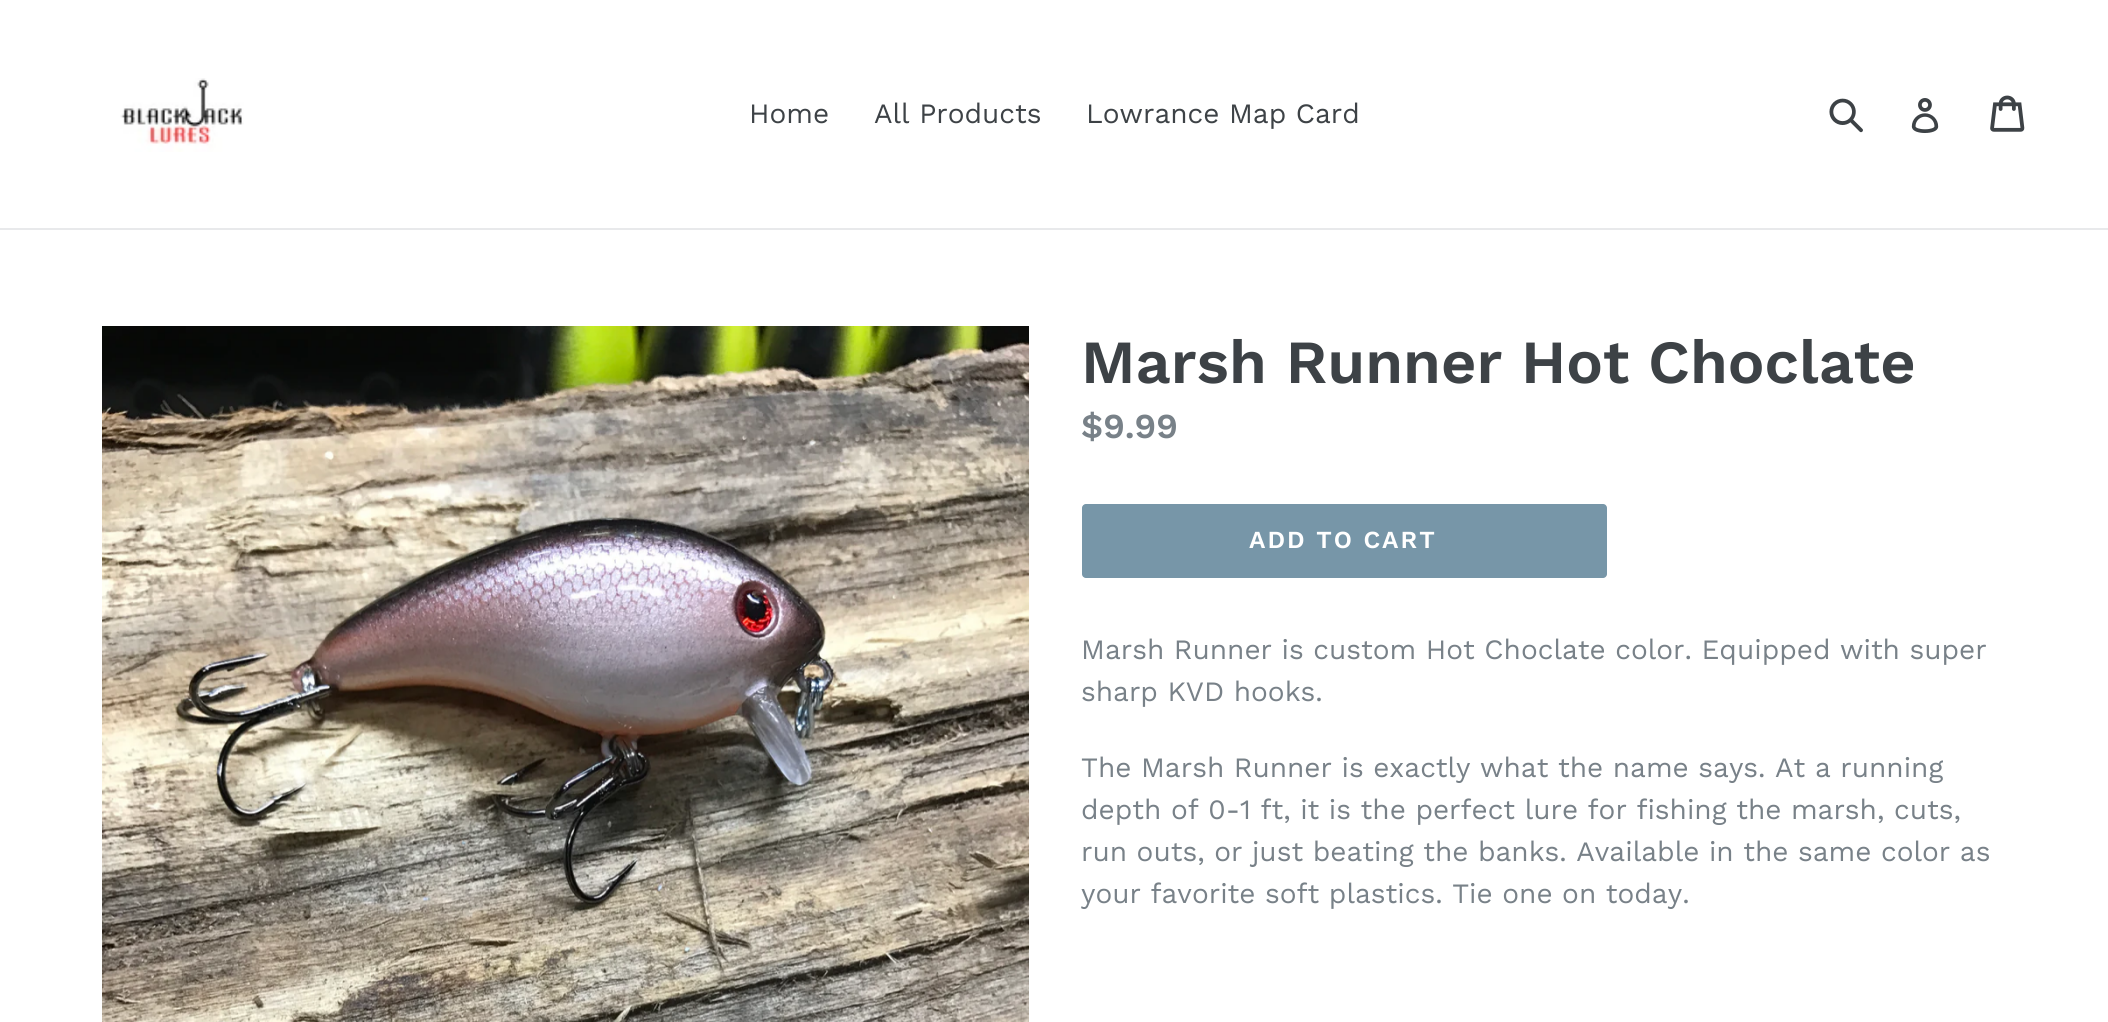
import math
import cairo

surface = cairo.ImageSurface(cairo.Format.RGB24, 2108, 1022)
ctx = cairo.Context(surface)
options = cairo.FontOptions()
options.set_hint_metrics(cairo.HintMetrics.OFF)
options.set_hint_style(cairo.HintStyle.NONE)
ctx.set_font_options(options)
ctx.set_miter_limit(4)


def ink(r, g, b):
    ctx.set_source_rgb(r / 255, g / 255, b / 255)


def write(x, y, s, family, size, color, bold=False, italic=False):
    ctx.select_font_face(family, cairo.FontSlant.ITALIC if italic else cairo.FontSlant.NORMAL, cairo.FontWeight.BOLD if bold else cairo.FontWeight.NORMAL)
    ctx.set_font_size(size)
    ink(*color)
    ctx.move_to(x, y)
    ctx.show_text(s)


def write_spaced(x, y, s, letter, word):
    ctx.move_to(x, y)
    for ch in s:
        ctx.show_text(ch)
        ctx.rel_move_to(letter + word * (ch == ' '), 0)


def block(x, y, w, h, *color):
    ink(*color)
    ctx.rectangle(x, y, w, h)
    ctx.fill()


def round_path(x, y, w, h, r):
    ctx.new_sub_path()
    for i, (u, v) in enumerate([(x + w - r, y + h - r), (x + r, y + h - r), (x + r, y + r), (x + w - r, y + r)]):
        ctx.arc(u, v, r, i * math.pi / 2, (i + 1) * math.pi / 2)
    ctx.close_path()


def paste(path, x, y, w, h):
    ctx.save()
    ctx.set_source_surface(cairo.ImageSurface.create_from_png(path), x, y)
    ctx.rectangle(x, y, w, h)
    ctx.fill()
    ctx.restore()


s1 = dict(family="Work Sans", size=28, color=(61, 66, 70))
s2 = dict(family="Work Sans SemiBold", size=61.25, color=(61, 66, 70))
s3 = dict(family="Work Sans SemiBold", size=35, color=(120, 129, 136))
s4 = dict(family="Work Sans", size=28, color=(120, 129, 136))

ink(255, 255, 255)
ctx.paint()
block(0, 228, 2108, 2, 232, 233, 235)
paste("pic1.png", 120, 78, 124, 74)
write(749, 123, "Home", **s1)
write(874, 123, "All Products", **s1)
write(1086, 123, "Lowrance Map Card", **s1)
paste("pic2.png", 1829, 98, 34, 35)
paste("pic3.png", 1911, 98, 28, 35)
paste("pic4.png", 1990, 95, 35, 37)
paste("pic5.png", 102, 326, 927, 696)
write(1081, 383, "Marsh Runner Hot Choclate", **s2)
write(1081, 438, "$9.99", **s3)
ink(119, 150, 168)
round_path(1082, 504, 525, 74, 4)
ctx.fill()
ctx.set_font_size(24.5)
ink(255, 255, 255)
write_spaced(1249, 548, "ADD TO CART", 2, 0)
write(1081, 659, "Marsh Runner is custom Hot Choclate color. Equipped with super", **s4)
write(1081, 701, "sharp KVD hooks.", **s4)
write(1081, 777, "The Marsh Runner is exactly what the name says. At a running", **s4)
write(1081, 819, "depth of 0-1 ft, it is the perfect lure for fishing the marsh, cuts,", **s4)
write(1081, 861, "run outs, or just beating the banks. Available in the same color as", **s4)
write(1081, 903, "your favorite soft plastics. Tie one on today.", **s4)
surface.write_to_png("screenshot.png")
